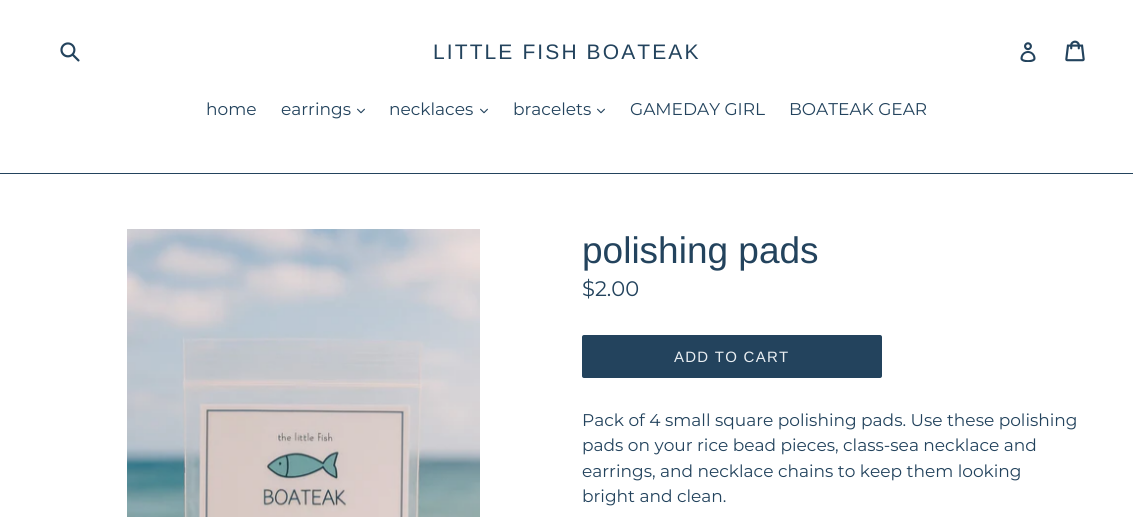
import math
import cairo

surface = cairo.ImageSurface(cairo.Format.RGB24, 1133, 517)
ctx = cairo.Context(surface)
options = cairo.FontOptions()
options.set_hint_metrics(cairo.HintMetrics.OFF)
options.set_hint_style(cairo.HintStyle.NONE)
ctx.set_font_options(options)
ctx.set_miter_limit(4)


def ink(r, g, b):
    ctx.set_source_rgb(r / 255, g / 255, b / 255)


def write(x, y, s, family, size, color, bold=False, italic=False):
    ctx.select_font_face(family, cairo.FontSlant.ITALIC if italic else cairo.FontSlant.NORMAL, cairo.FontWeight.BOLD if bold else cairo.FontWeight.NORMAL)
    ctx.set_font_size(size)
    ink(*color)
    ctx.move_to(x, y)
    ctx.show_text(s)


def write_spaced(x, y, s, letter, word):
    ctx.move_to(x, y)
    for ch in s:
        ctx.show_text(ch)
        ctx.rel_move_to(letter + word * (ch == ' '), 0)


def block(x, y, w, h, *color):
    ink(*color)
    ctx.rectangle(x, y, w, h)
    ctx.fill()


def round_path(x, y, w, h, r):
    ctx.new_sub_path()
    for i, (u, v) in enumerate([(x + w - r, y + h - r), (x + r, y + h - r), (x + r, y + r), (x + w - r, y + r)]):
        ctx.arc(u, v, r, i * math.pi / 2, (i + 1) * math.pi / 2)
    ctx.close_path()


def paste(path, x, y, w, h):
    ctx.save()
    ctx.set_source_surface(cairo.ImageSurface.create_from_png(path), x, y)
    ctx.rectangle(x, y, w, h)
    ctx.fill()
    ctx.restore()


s1 = dict(family="Montserrat", size=17, color=(35, 67, 93))
s2 = dict(family="Liberation Sans", size=37, color=(35, 67, 93))
s3 = dict(family="Montserrat", size=21, color=(35, 67, 93))

ink(255, 255, 255)
ctx.paint()
paste("pic1.png", 60, 42, 20, 20)
ctx.select_font_face("Liberation Sans")
ctx.set_font_size(21)
ink(35, 67, 93)
write_spaced(433, 59, "LITTLE FISH BOATEAK", 2.1, 0)
paste("pic2.png", 1020, 42, 16, 20)
paste("pic3.png", 1065, 40, 20, 22)
block(0, 173, 1133, 1, 35, 67, 93)
write(206, 115, "home", **s1)
write(281, 115, "earrings", **s1)
paste("pic4.png", 357, 108, 8, 6)
write(389, 115, "necklaces", **s1)
paste("pic4.png", 480, 108, 8, 6)
write(513, 115, "bracelets", **s1)
paste("pic4.png", 597, 108, 8, 6)
write(630, 115, "GAMEDAY GIRL", **s1)
write(789, 115, "BOATEAK GEAR", **s1)
paste("pic5.png", 127, 229, 353, 288)
write(582, 263, "polishing pads", **s2)
write(582, 296, "$2.00", **s3)
round_path(582, 335, 300, 43, 2)
ctx.fill()
ctx.select_font_face("Liberation Sans")
ctx.set_font_size(15)
ink(233, 238, 242)
write_spaced(674, 362, "ADD TO CART", 1.25, 0)
write(582, 426, "Pack of 4 small square polishing pads. Use these polishing", **s1)
write(582, 451, "pads on your rice bead pieces, class-sea necklace and", **s1)
write(582, 477, "earrings, and necklace chains to keep them looking", **s1)
write(582, 502, "bright and clean.", **s1)
surface.write_to_png("screenshot.png")
